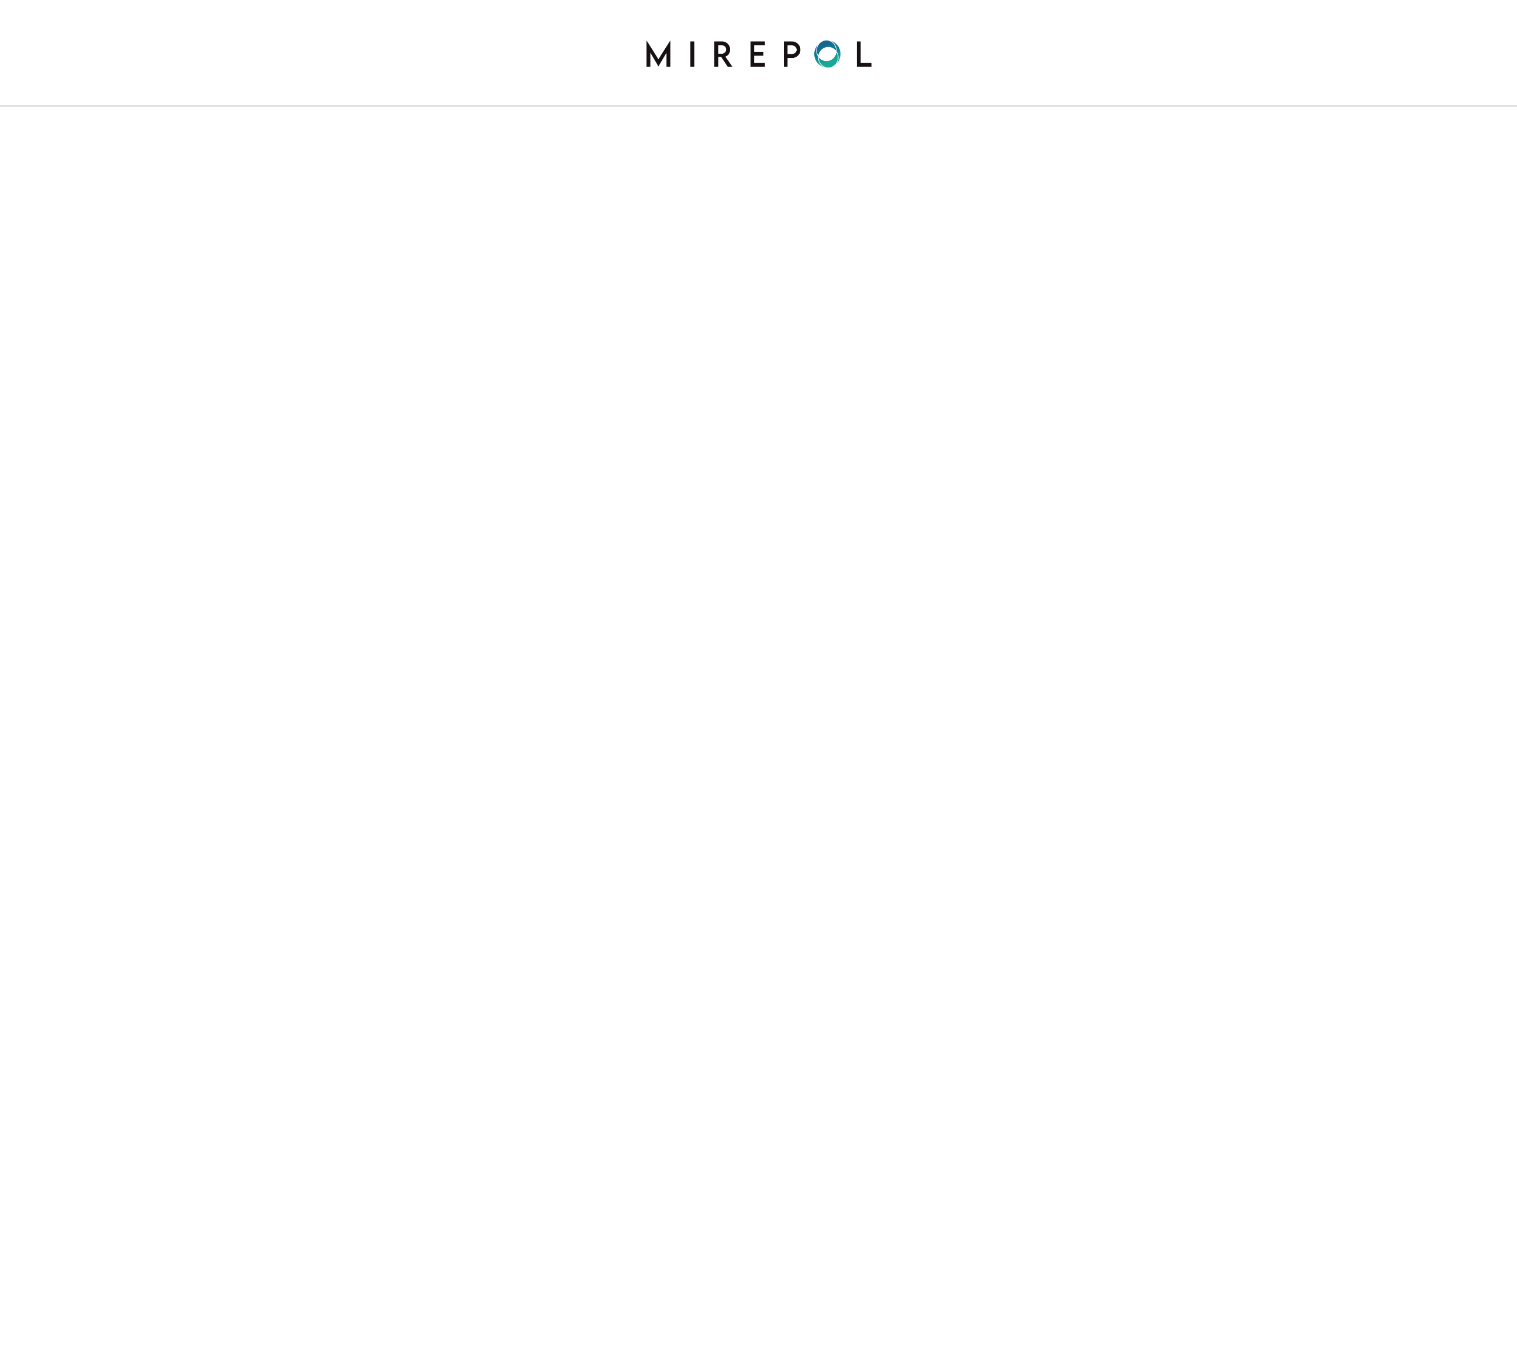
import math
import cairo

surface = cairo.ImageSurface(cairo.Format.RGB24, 1517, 1345)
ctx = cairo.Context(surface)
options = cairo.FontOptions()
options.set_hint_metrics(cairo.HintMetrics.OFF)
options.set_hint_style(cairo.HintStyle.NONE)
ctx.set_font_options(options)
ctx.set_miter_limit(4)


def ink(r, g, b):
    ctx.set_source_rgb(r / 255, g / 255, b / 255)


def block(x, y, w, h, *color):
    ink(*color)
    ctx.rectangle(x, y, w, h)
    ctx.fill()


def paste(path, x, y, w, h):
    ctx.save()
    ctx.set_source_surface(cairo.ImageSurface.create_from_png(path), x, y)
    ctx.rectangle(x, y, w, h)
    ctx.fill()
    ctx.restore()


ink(255, 255, 255)
ctx.paint()
block(0, 105, 1517, 2, 226, 226, 228)
paste("pic1.png", 646, 40, 226, 28)
surface.write_to_png("screenshot.png")
